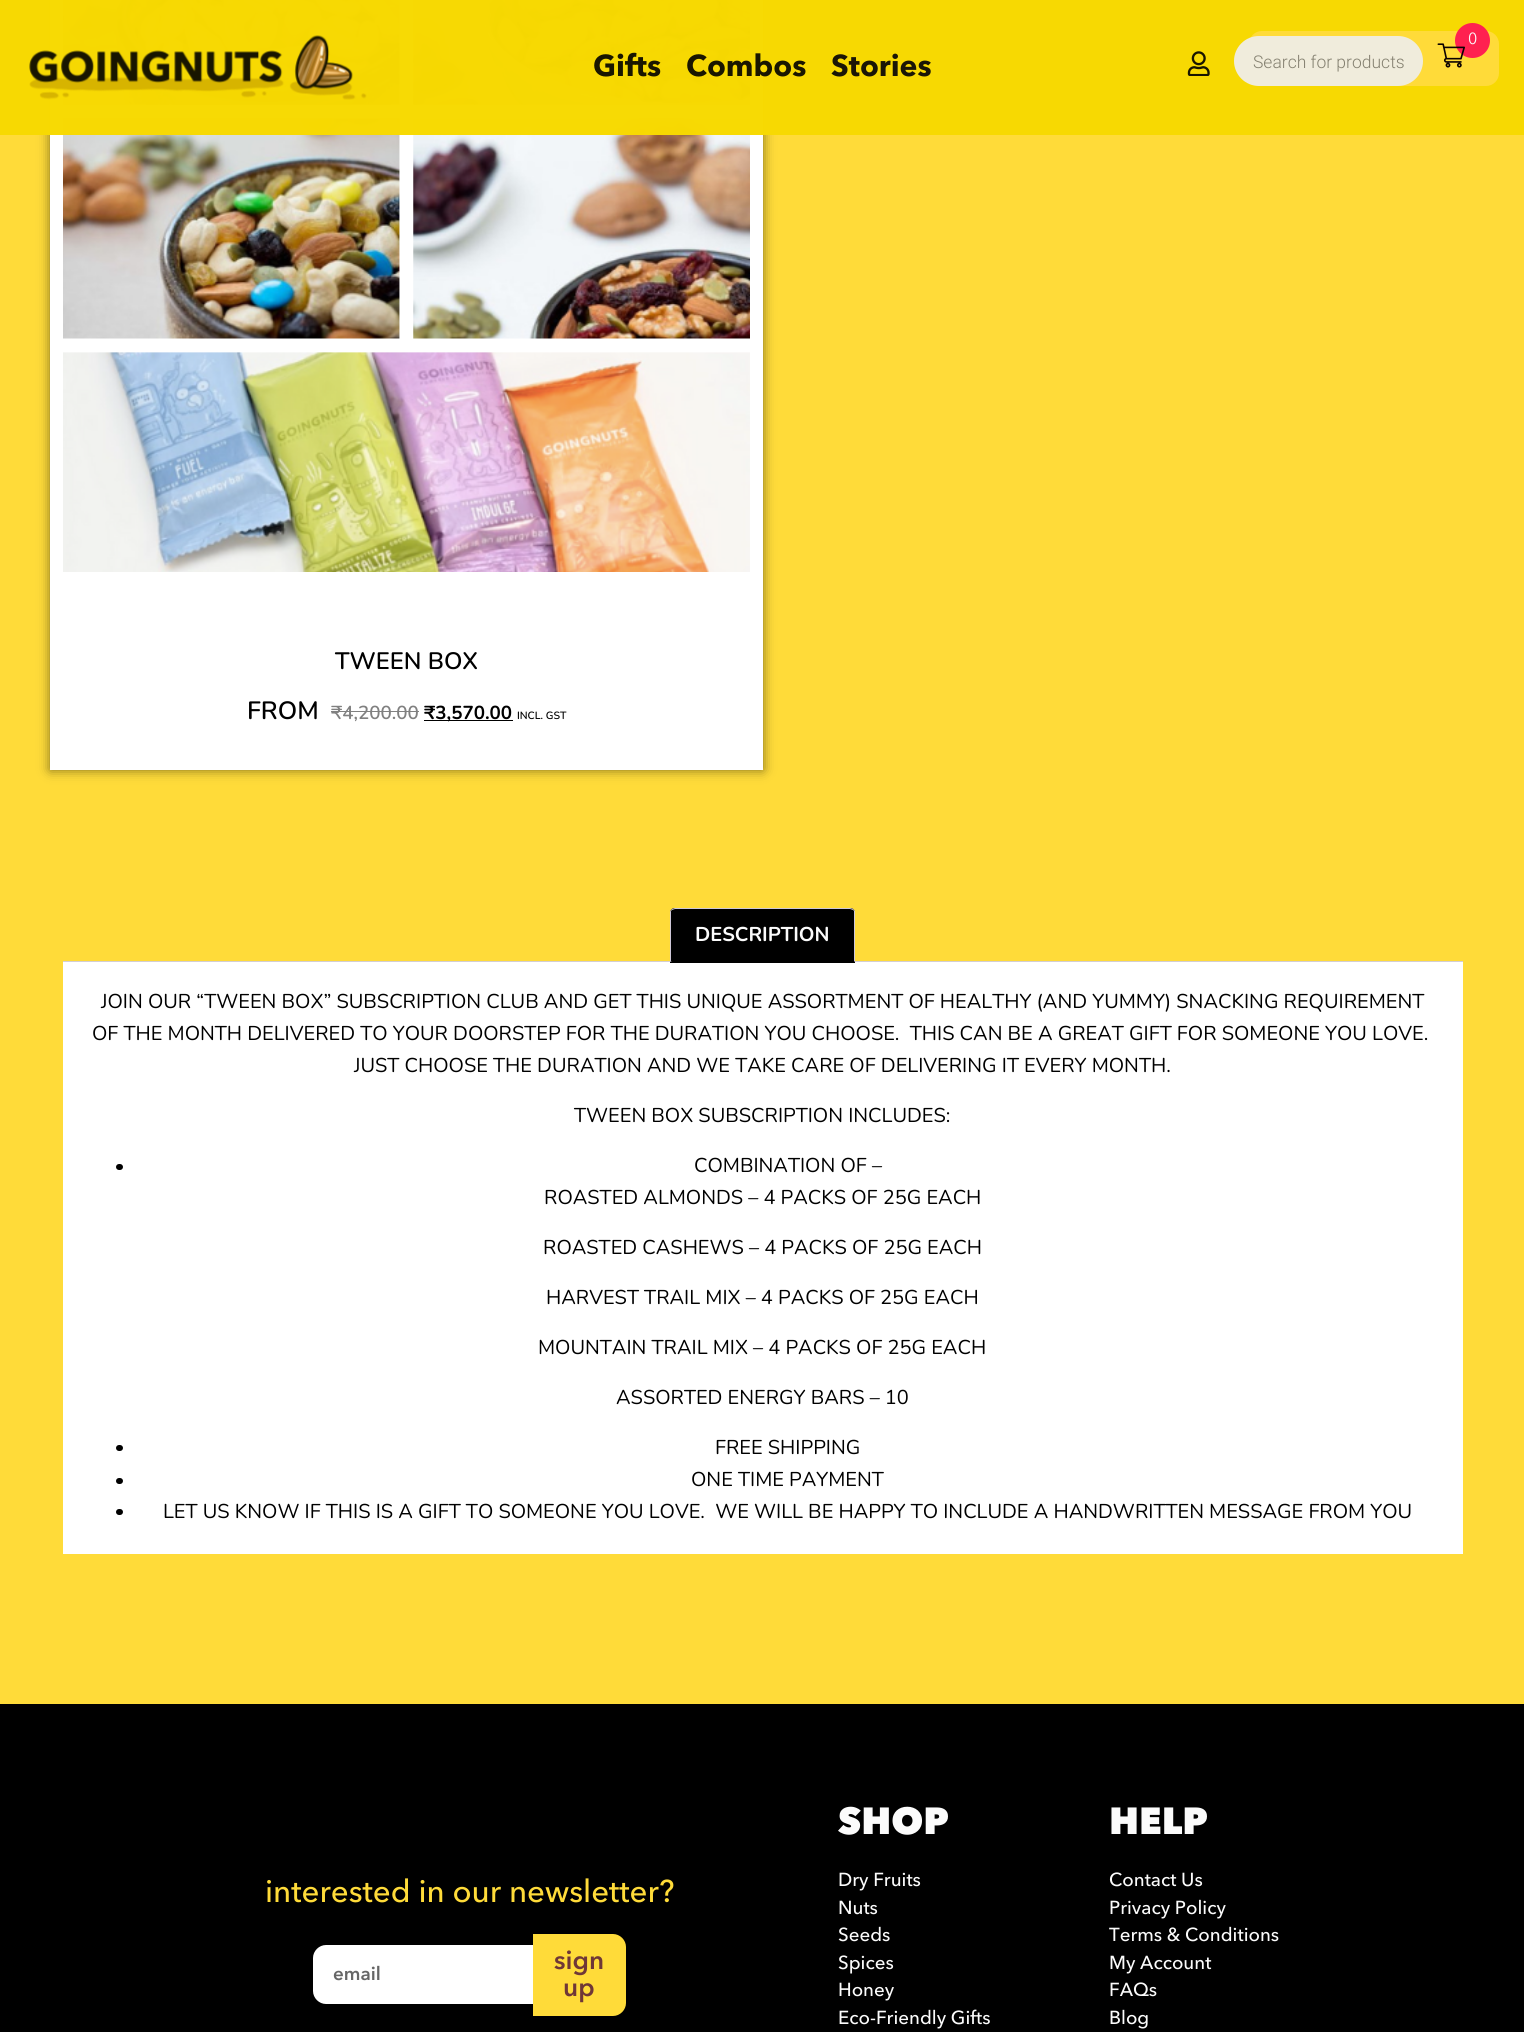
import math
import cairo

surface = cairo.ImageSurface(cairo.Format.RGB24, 1524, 2032)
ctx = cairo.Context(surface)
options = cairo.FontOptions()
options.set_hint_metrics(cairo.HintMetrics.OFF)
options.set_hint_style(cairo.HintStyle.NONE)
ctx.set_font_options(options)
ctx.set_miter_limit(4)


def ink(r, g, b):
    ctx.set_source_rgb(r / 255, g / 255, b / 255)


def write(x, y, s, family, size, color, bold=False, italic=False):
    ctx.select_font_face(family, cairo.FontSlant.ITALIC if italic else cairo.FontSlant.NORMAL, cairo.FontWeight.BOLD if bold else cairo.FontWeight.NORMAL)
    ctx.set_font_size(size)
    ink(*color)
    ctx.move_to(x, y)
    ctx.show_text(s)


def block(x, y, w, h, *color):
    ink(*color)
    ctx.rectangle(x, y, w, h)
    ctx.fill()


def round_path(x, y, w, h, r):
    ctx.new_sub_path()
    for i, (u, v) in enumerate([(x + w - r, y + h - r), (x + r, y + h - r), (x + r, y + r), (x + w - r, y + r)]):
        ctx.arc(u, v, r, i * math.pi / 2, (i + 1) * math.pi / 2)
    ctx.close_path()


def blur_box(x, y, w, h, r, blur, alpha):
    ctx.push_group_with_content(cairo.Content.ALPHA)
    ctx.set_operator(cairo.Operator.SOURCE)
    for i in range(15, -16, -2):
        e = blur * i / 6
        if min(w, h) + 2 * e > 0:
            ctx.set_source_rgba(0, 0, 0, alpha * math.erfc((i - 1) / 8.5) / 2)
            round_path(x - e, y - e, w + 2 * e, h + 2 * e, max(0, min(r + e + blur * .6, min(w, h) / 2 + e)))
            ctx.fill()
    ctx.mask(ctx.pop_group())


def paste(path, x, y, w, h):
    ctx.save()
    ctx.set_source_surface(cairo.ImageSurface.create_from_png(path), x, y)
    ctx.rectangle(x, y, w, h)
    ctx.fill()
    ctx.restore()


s1 = dict(family="Avenir Next", size=16, color=(251, 251, 251))
s2 = dict(family="Avenir Next", size=30, color=(25, 22, 0), bold=True)
s3 = dict(family="Avenir Next", size=30, color=(26, 22, 6), bold=True)
s4 = dict(family="Roboto Light", size=17.5, color=(133, 129, 113))
s5 = dict(family="Nunito SemiBold", size=23.75, color=(0, 0, 0))
s6 = dict(family="Nunito SemiBold", size=25, color=(0, 0, 0))
s7 = dict(family="Nunito SemiBold", size=18.75, color=(128, 128, 128))
s8 = dict(family="Nunito", size=18.75, color=(0, 0, 0), bold=True)
s9 = dict(family="Nunito SemiBold", size=10.5, color=(0, 0, 0))
s10 = dict(family="Nunito", size=20, color=(251, 251, 251), bold=True)
s11 = dict(family="Nunito", size=20, color=(0, 0, 0))
s12 = dict(family="Avenir Next Medium", size=31.25, color=(255, 219, 57))
s13 = dict(family="Avenir Next SemiBold", size=18.75, color=(102, 102, 102))
s14 = dict(family="Avenir Next SemiBold", size=26, color=(111, 55, 55))
s15 = dict(family="Avenir Next Black", size=37.5, color=(251, 251, 251))
s16 = dict(family="Avenir Next Medium", size=18.75, color=(251, 251, 251))

ink(255, 219, 57)
ctx.paint()
ink(0, 0, 0)
blur_box(50, -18, 713, 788, 0, 6, 0.5)
block(50, 0, 713, 770, 255, 255, 255)
paste("pic4.png", 63, 0, 687, 572)
ctx.set_source_rgba(0.969, 0.855, 0.008, 0.9)
ctx.rectangle(0, 0, 1524, 135)
ctx.fill()
ctx.rectangle(0, 0, 1524, 135)
ctx.fill()
ink(255, 219, 57)
round_path(1249, 31, 250, 55, 13)
ctx.fill()
ink(255, 33, 80)
ctx.arc(1472.5, 40.5, 17.5, 0, 2 * math.pi)
ctx.fill()
write(1468, 44, "0", **s1)
paste("pic1.png", 1437, 43, 28, 25)
paste("pic2.png", 29, 35, 338, 65)
write(593, 76, "Gifts", **s2)
write(686, 76, "Combos", **s2)
write(831, 76, "Stories", **s3)
paste("pic3.png", 1187, 51, 23, 25)
ink(240, 236, 220)
round_path(1234, 36, 189, 50, 25)
ctx.fill()
write(1253, 68, "Search for products", **s4)
write(335, 669, "TWEEN BOX", **s5)
write(247, 719, "FROM", **s6)
write(331, 719, "₹4,200.00", **s7)
block(331, 711, 88, 1, 128, 128, 128)
block(424, 720, 89, 1, 0, 0, 0)
write(424, 719, "₹3,570.00", **s8)
write(517, 719, "INCL. GST", **s9)
block(63, 962, 1400, 592, 255, 255, 255)
block(63, 961, 1400, 1, 211, 206, 210)
ink(0, 0, 0)
ctx.new_path()
ctx.move_to(675, 908)
ctx.line_to(850, 908)
ctx.curve_to(853, 908, 855, 910, 855, 913)
ctx.line_to(855, 963)
ctx.line_to(670, 963)
ctx.line_to(670, 913)
ctx.curve_to(670, 910, 672, 908, 675, 908)
ctx.close_path()
ctx.fill()
ink(207, 200, 216)
ctx.new_path()
ctx.move_to(675, 908)
ctx.line_to(672, 909)
ctx.line_to(672, 910)
ctx.line_to(675, 909)
ctx.line_to(850, 909)
ctx.line_to(853, 910)
ctx.line_to(853, 909)
ctx.line_to(850, 908)
ctx.close_path()
ctx.fill()
ctx.new_path()
ctx.move_to(855, 962)
ctx.line_to(855, 911)
ctx.line_to(853, 909)
ctx.line_to(853, 910)
ctx.line_to(854, 911)
ctx.line_to(854, 961)
ctx.close_path()
ctx.fill()
ctx.new_path()
ctx.move_to(670, 912)
ctx.line_to(670, 962)
ctx.line_to(672, 961)
ctx.line_to(671, 961)
ctx.line_to(671, 911)
ctx.line_to(672, 910)
ctx.line_to(672, 909)
ctx.curve_to(671, 910, 670, 911, 670, 912)
ctx.close_path()
ctx.fill()
write(695, 941, "DESCRIPTION", **s10)
write(101, 1008, "JOIN OUR “TWEEN BOX” SUBSCRIPTION CLUB AND GET THIS UNIQUE ASSORTMENT OF HEALTHY (AND YUMMY) SNACKING REQUIREMENT", **s11)
write(92, 1040, "OF THE MONTH DELIVERED TO YOUR DOORSTEP FOR THE DURATION YOU CHOOSE.  THIS CAN BE A GREAT GIFT FOR SOMEONE YOU LOVE.", **s11)
write(354, 1072, "JUST CHOOSE THE DURATION AND WE TAKE CARE OF DELIVERING IT EVERY MONTH.", **s11)
write(574, 1122, "TWEEN BOX SUBSCRIPTION INCLUDES:", **s11)
round_path(116, 1164, 7, 6, 3)
ctx.fill()
write(694, 1172, "COMBINATION OF –", **s11)
write(544, 1204, "ROASTED ALMONDS – 4 PACKS OF 25G EACH", **s11)
write(543, 1254, "ROASTED CASHEWS – 4 PACKS OF 25G EACH", **s11)
write(546, 1304, "HARVEST TRAIL MIX – 4 PACKS OF 25G EACH", **s11)
write(538, 1354, "MOUNTAIN TRAIL MIX – 4 PACKS OF 25G EACH", **s11)
write(616, 1404, "ASSORTED ENERGY BARS – 10", **s11)
round_path(116, 1445, 7, 6, 3)
ctx.fill()
write(715, 1454, "FREE SHIPPING", **s11)
round_path(116, 1478, 7, 6, 3)
ctx.fill()
write(691, 1486, "ONE TIME PAYMENT", **s11)
round_path(116, 1509, 7, 6, 3)
ctx.fill()
write(163, 1518, "LET US KNOW IF THIS IS A GIFT TO SOMEONE YOU LOVE.  WE WILL BE HAPPY TO INCLUDE A HANDWRITTEN MESSAGE FROM YOU", **s11)
block(0, 1704, 1524, 328, 0, 0, 0)
write(265, 1902, "interested in our newsletter?", **s12)
ink(255, 255, 255)
ctx.new_path()
ctx.move_to(326, 1945)
ctx.line_to(533, 1945)
ctx.line_to(533, 2004)
ctx.line_to(326, 2004)
ctx.curve_to(319, 2004, 313, 1998, 313, 1991)
ctx.line_to(313, 1958)
ctx.curve_to(313, 1951, 319, 1945, 326, 1945)
ctx.close_path()
ctx.fill()
write(333, 1980, "email", **s13)
ink(255, 219, 57)
ctx.new_path()
ctx.move_to(533, 1934)
ctx.line_to(613, 1934)
ctx.curve_to(620, 1934, 626, 1940, 626, 1947)
ctx.line_to(626, 2003)
ctx.curve_to(626, 2010, 620, 2016, 613, 2016)
ctx.line_to(533, 2016)
ctx.close_path()
ctx.fill()
write(554, 1969, "sign", **s14)
write(563, 1996, "up", **s14)
write(838, 1834, "SHOP", **s15)
write(838, 1886, "Dry Fruits", **s16)
write(838, 1914, "Nuts", **s16)
write(838, 1941, "Seeds", **s16)
write(838, 1969, "Spices", **s16)
write(838, 1996, "Honey", **s16)
write(838, 2024, "Eco-Friendly Gifts", **s16)
write(1109, 1834, "HELP", **s15)
write(1109, 1886, "Contact Us", **s16)
write(1109, 1914, "Privacy Policy", **s16)
write(1109, 1941, "Terms & Conditions", **s16)
write(1109, 1969, "My Account", **s16)
write(1109, 1996, "FAQs", **s16)
write(1109, 2024, "Blog", **s16)
surface.write_to_png("screenshot.png")
